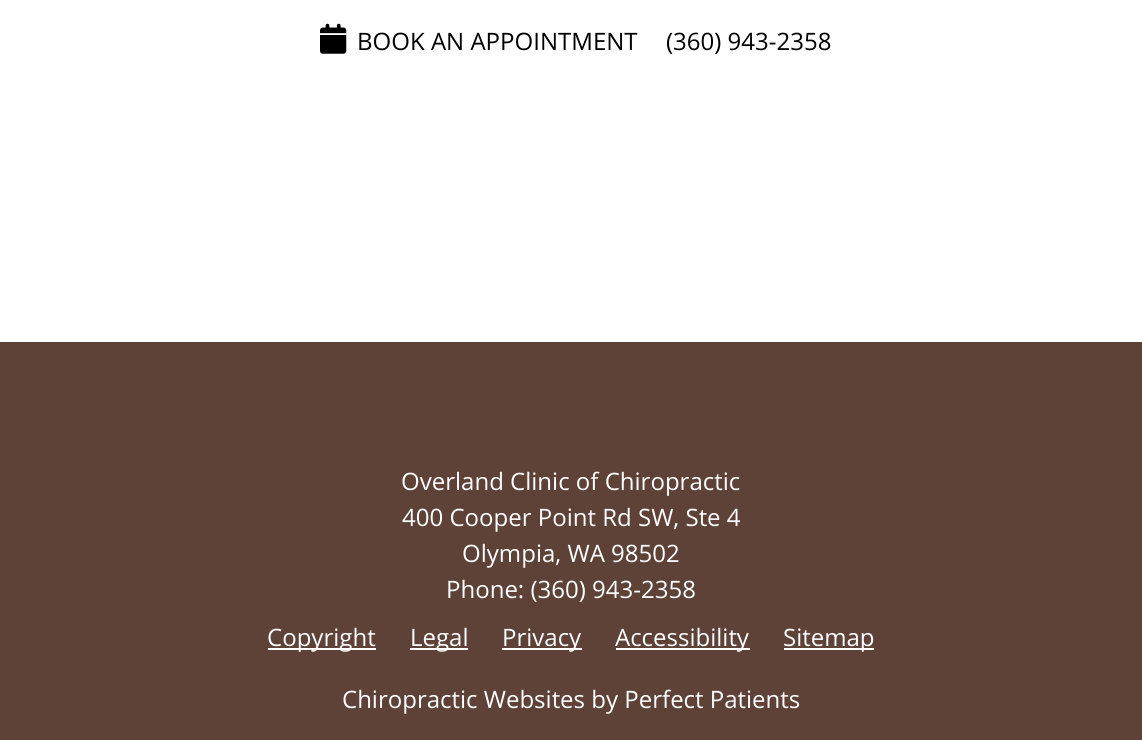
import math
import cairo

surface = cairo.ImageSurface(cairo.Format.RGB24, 1142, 740)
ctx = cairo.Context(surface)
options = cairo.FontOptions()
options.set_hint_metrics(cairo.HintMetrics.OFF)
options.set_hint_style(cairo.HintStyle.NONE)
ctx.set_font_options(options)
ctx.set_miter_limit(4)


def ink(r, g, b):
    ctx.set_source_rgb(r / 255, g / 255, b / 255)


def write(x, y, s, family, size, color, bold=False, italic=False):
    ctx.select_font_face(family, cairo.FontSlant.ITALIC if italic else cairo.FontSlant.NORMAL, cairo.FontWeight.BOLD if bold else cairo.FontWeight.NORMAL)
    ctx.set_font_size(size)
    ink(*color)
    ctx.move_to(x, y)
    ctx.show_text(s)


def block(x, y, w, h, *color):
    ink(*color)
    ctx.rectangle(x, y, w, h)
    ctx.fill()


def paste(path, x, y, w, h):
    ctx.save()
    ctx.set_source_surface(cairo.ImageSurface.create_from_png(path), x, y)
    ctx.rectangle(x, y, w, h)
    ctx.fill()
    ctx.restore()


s1 = dict(family="Open Sans", size=24, color=(0, 0, 0))
s2 = dict(family="Open Sans", size=24, color=(255, 255, 255))

ink(255, 255, 255)
ctx.paint()
paste("pic1.png", 320, 23, 27, 31)
write(357, 50, "BOOK AN APPOINTMENT", **s1)
write(666, 50, "(360) 943-2358", **s1)
block(0, 342, 1142, 398, 94, 66, 56)
write(401, 490, "Overland Clinic of Chiropractic", **s2)
write(402, 526, "400 Cooper Point Rd SW, Ste 4", **s2)
write(462, 562, "Olympia, WA 98502", **s2)
write(446, 598, "Phone: (360) 943-2358", **s2)
block(268, 648, 108, 2, 255, 255, 255)
write(267, 646, "Copyright", **s2)
block(410, 648, 58, 2, 255, 255, 255)
write(410, 646, "Legal", **s2)
block(502, 648, 80, 2, 255, 255, 255)
write(502, 646, "Privacy", **s2)
block(616, 648, 134, 2, 255, 255, 255)
write(615, 646, "Accessibility", **s2)
block(784, 648, 90, 2, 255, 255, 255)
write(783, 646, "Sitemap", **s2)
write(342, 708, "Chiropractic Websites by Perfect Patients", **s2)
surface.write_to_png("screenshot.png")
